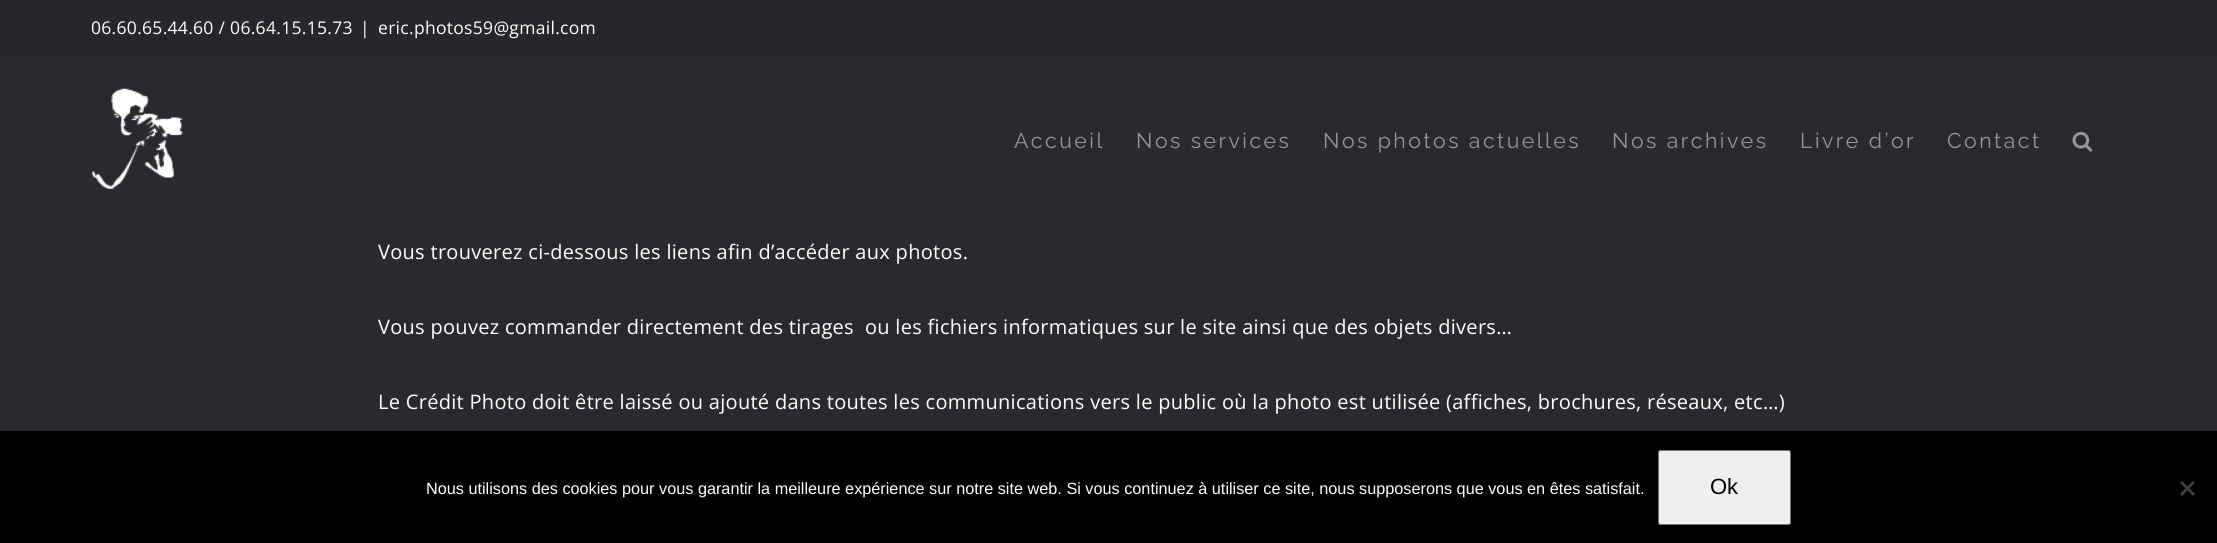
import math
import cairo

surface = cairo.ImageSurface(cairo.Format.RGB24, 2217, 543)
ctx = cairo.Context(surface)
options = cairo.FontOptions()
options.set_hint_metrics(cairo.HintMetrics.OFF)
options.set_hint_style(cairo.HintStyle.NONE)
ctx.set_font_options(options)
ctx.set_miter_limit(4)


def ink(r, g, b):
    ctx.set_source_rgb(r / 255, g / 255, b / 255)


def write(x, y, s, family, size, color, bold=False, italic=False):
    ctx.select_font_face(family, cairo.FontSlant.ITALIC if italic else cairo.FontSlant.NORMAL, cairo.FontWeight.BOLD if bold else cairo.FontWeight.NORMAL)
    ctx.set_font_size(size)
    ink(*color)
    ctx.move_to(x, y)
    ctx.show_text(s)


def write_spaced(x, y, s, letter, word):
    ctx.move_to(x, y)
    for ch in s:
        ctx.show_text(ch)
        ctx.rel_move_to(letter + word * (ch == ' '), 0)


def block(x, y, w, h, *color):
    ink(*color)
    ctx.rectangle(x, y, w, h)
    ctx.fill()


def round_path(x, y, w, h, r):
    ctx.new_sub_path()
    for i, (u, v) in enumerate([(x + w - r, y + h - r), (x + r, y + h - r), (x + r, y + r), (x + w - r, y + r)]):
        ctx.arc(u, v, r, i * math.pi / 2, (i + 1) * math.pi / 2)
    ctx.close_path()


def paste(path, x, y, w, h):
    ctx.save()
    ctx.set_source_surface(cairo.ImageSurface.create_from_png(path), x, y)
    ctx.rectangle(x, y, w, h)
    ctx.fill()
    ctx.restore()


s1 = dict(family="Liberation Sans", size=16.25, color=(255, 255, 255))
s2 = dict(family="Liberation Sans", size=22, color=(0, 0, 0))

ink(40, 42, 45)
ctx.paint()
block(0, 0, 2217, 56, 37, 39, 42)
ctx.select_font_face("Open Sans")
ctx.set_font_size(17.5)
ink(255, 255, 255)
write_spaced(91, 34, "06.60.65.44.60 / 06.64.15.15.73", 0.3, 0)
write_spaced(360, 34, "|", 0.3, 0)
write_spaced(378, 34, "eric.photos59@gmail.com", 0.3, 0)
paste("pic1.png", 91, 88, 92, 101)
ctx.select_font_face("Raleway")
ctx.set_font_size(21.25)
ink(148, 149, 150)
write_spaced(1014, 148, "Accueil", 2.5, 0)
write_spaced(1136, 148, "Nos services", 2.5, 0)
write_spaced(1323, 148, "Nos photos actuelles", 2.5, 0)
write_spaced(1612, 148, "Nos archives", 2.5, 0)
write_spaced(1800, 148, "Livre d’or", 2.5, 0)
write_spaced(1947, 148, "Contact", 2.5, 0)
paste("pic2.png", 2072, 131, 21, 21)
ctx.select_font_face("Open Sans")
ctx.set_font_size(20)
ink(255, 255, 255)
write_spaced(378, 259, "Vous trouverez ci-dessous les liens afin d’accéder aux photos.", 0.3, 0)
write_spaced(378, 334, "Vous pouvez commander directement des tirages  ou les fichiers informatiques sur le site ainsi que des objets divers…", 0.3, 0)
write_spaced(378, 409, "Le Crédit Photo doit être laissé ou ajouté dans toutes les communications vers le public où la photo est utilisée (affiches, brochures, réseaux, etc…)", 0.3, 0)
block(0, 431, 2217, 112, 0, 0, 0)
write(426, 494, "Nous utilisons des cookies pour vous garantir la meilleure expérience sur notre site web. Si vous continuez à utiliser ce site, nous supposerons que vous en êtes satisfait.", **s1)
ink(239, 239, 239)
round_path(1658.5, 450.5, 132, 74, 2)
ctx.fill_preserve()
ink(118, 118, 118)
ctx.set_line_width(1)
ctx.stroke()
write(1710, 494, "Ok", **s2)
ink(64, 64, 64)
ctx.new_path()
ctx.move_to(2193, 481)
ctx.line_to(2195, 482.5)
ctx.line_to(2182, 496)
ctx.line_to(2180, 494)
ctx.close_path()
ctx.fill()
ctx.new_path()
ctx.move_to(2180, 482.5)
ctx.line_to(2182, 481)
ctx.line_to(2195, 494)
ctx.line_to(2193, 496)
ctx.close_path()
ctx.fill()
surface.write_to_png("screenshot.png")
